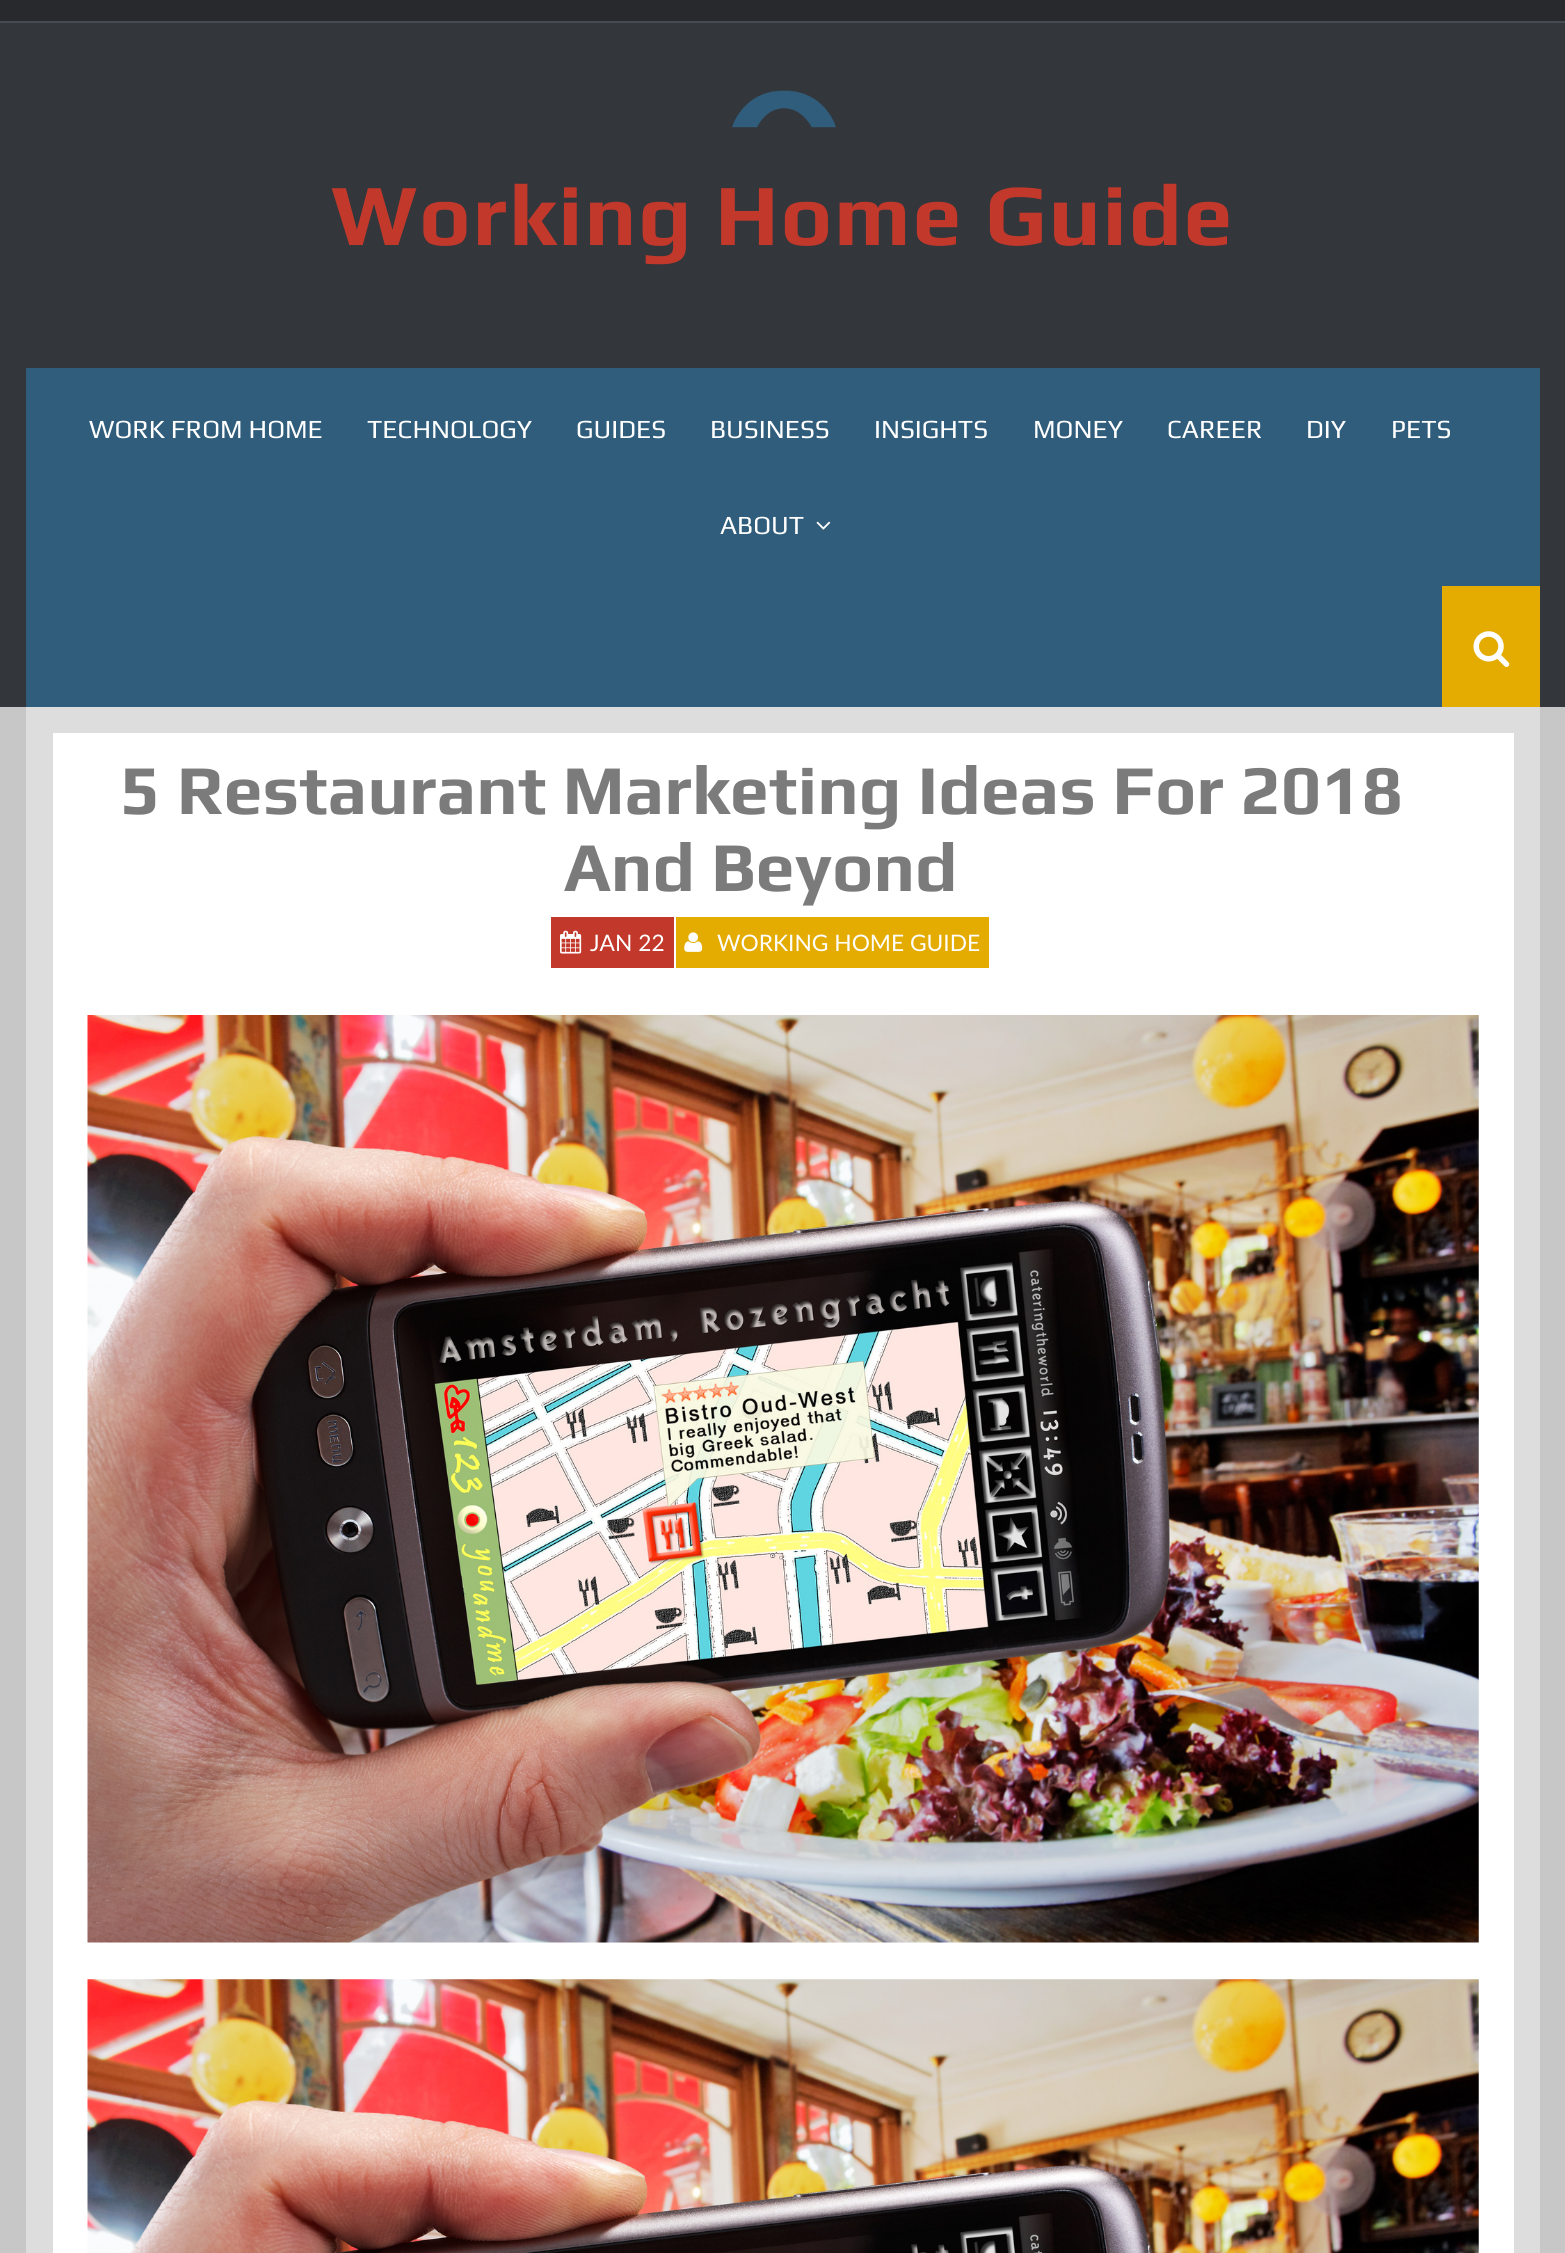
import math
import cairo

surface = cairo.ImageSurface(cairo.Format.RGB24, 1565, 2253)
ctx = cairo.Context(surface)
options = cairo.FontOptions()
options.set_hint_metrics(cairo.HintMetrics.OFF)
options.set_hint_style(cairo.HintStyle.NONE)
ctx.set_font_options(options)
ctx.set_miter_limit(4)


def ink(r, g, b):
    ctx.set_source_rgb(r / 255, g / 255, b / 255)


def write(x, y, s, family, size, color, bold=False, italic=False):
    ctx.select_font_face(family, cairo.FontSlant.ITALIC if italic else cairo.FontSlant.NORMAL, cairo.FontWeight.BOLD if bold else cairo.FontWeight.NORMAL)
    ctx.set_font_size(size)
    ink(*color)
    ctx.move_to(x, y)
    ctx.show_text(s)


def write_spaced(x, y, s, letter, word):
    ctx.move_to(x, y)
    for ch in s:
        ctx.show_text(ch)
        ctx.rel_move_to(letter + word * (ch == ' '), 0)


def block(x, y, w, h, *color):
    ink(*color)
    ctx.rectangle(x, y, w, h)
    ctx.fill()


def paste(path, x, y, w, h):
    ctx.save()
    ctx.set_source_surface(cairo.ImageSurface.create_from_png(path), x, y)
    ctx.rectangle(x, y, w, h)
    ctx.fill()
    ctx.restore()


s1 = dict(family="Play", size=26.25, color=(255, 255, 255))
s2 = dict(family="Play", size=70, color=(123, 123, 123), bold=True)
s3 = dict(family="Lato", size=22.75, color=(255, 255, 255))

ink(39, 41, 45)
ctx.paint()
block(0, 23, 1565, 345, 51, 54, 59)
block(0, 21, 1565, 2, 70, 74, 81)
paste("pic1.png", 732, 90, 104, 38)
ctx.select_font_face("Play", cairo.FontSlant.NORMAL, cairo.FontWeight.BOLD)
ctx.set_font_size(87.5)
ink(194, 56, 43)
write_spaced(331, 245, "Working Home Guide", 1.75, 0)
block(26, 368, 1514, 339, 48, 93, 123)
block(1540, 368, 25, 339, 51, 54, 59)
block(0, 368, 26, 339, 51, 54, 59)
write(89, 438, "WORK FROM HOME", **s1)
write(367, 438, "TECHNOLOGY", **s1)
write(576, 438, "GUIDES", **s1)
write(710, 438, "BUSINESS", **s1)
write(874, 438, "INSIGHTS", **s1)
write(1033, 438, "MONEY", **s1)
write(1167, 438, "CAREER", **s1)
write(1306, 438, "DIY", **s1)
write(1391, 438, "PETS", **s1)
write(720, 534, "ABOUT", **s1)
paste("pic2.png", 816, 521, 15, 9)
block(1442, 586, 98, 121, 228, 171, 1)
paste("pic3.png", 1473, 631, 37, 36)
block(26, 707, 1514, 1546, 221, 221, 221)
block(1540, 707, 25, 1546, 199, 199, 199)
block(0, 707, 26, 1546, 199, 199, 199)
block(53, 733, 1461, 1520, 255, 255, 255)
write(120, 814, "5 Restaurant Marketing Ideas For 2018", **s2)
write(564, 891, "And Beyond", **s2)
block(551, 917, 123, 51, 194, 56, 43)
paste("pic4.png", 560, 930, 22, 24)
write(590, 951, "JAN 22", **s3)
block(676, 917, 313, 51, 228, 171, 1)
paste("pic5.png", 684, 932, 19, 20)
write(717, 951, "WORKING HOME GUIDE", **s3)
paste("pic6.png", 87, 1015, 1392, 928)
paste("pic7.png", 87, 1979, 1392, 274)
surface.write_to_png("screenshot.png")
